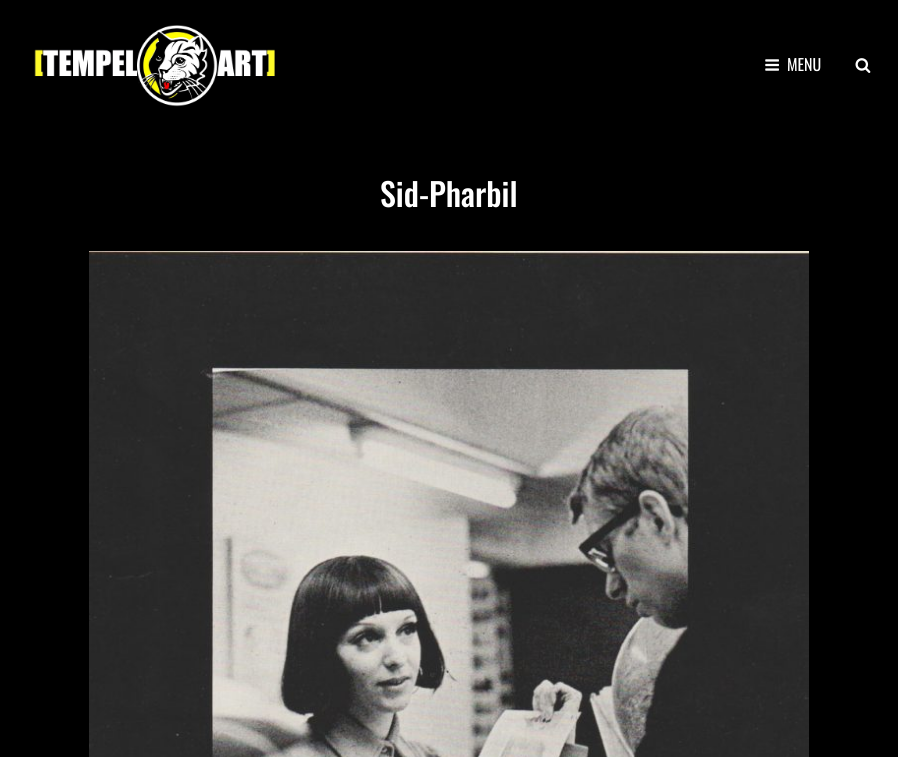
import math
import cairo

surface = cairo.ImageSurface(cairo.Format.RGB24, 898, 757)
ctx = cairo.Context(surface)
options = cairo.FontOptions()
options.set_hint_metrics(cairo.HintMetrics.OFF)
options.set_hint_style(cairo.HintStyle.NONE)
ctx.set_font_options(options)
ctx.set_miter_limit(4)


def ink(r, g, b):
    ctx.set_source_rgb(r / 255, g / 255, b / 255)


def write(x, y, s, family, size, color, bold=False, italic=False):
    ctx.select_font_face(family, cairo.FontSlant.ITALIC if italic else cairo.FontSlant.NORMAL, cairo.FontWeight.BOLD if bold else cairo.FontWeight.NORMAL)
    ctx.set_font_size(size)
    ink(*color)
    ctx.move_to(x, y)
    ctx.show_text(s)


def paste(path, x, y, w, h):
    ctx.save()
    ctx.set_source_surface(cairo.ImageSurface.create_from_png(path), x, y)
    ctx.rectangle(x, y, w, h)
    ctx.fill()
    ctx.restore()


s1 = dict(family="Oswald", size=16, color=(255, 255, 255))
s2 = dict(family="Oswald Medium", size=32, color=(255, 255, 255))

ink(0, 0, 0)
ctx.paint()
paste("pic1.png", 34, 25, 241, 82)
paste("pic2.png", 765, 59, 14, 12)
write(787, 71, "MENU", **s1)
paste("pic3.png", 855, 58, 16, 15)
write(380, 207, "Sid-Pharbil", **s2)
paste("pic4.png", 89, 251, 720, 506)
surface.write_to_png("screenshot.png")
